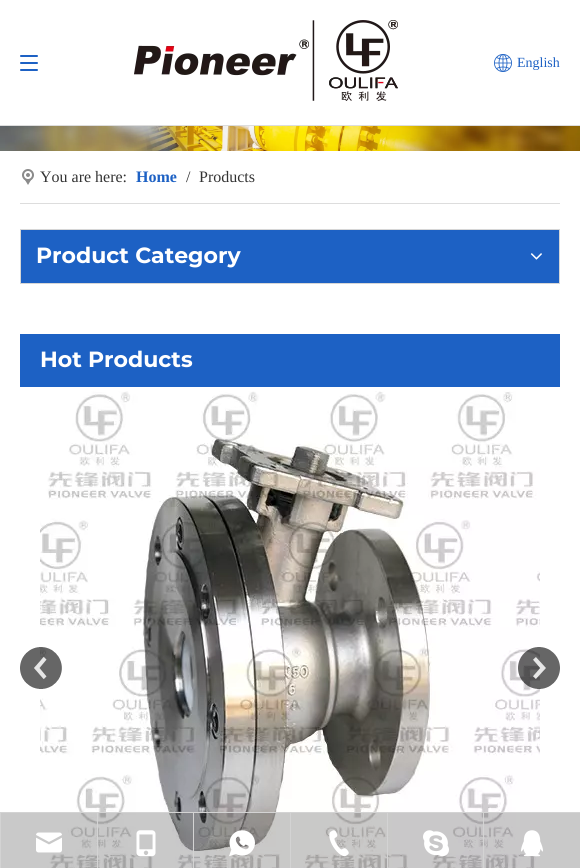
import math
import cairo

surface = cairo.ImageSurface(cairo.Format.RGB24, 580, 868)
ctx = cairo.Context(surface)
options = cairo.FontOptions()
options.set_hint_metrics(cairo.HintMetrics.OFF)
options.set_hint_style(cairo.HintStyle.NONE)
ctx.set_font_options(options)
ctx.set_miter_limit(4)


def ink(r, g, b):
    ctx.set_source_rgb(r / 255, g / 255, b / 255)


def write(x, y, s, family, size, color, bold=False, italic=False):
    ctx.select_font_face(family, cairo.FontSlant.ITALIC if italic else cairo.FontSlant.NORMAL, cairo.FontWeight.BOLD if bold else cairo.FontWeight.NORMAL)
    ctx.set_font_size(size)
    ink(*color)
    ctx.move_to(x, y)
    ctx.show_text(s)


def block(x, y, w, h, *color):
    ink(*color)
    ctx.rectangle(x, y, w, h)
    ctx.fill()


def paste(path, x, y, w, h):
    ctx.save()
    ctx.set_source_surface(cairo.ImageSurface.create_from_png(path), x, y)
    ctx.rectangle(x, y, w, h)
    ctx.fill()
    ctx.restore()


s1 = dict(family="Liberation Serif", size=14, color=(29, 97, 196))
s2 = dict(family="Liberation Serif", size=16, color=(51, 51, 51))
s3 = dict(family="Liberation Serif", size=16, color=(29, 97, 196), bold=True)
s4 = dict(family="Montserrat Thin", size=22, color=(255, 255, 255))

ink(255, 255, 255)
ctx.paint()
block(0, 125, 580, 1, 221, 221, 221)
paste("pic1.png", 20, 55, 18, 16)
paste("pic2.png", 134, 20, 264, 81)
paste("pic3.png", 494, 54, 18, 18)
write(517, 67, "English", **s1)
paste("pic4.png", 0, 126, 580, 25)
block(20, 203, 540, 1, 221, 221, 221)
paste("pic5.png", 22, 169, 12, 16)
write(40, 182, "You are here:", **s2)
write(136, 182, "Home", **s3)
write(186, 182, "/", **s2)
write(199, 182, "Products", **s2)
ctx.rectangle(20.5, 229.5, 539, 54)
ink(214, 214, 214)
ctx.set_line_width(1)
ctx.stroke()
block(21, 230, 538, 53, 29, 97, 196)
write(36, 263, "Product Category", **s4)
paste("pic6.png", 530, 253, 12, 7)
block(20, 334, 540, 53, 29, 97, 196)
write(40, 367, "Hot Products", **s4)
paste("pic7.png", 40, 391, 500, 477)
paste("pic8.png", 20, 647, 42, 42)
paste("pic9.png", 518, 647, 42, 42)
block(0, 812, 580, 1, 211, 211, 211)
block(0, 813, 1, 55, 211, 211, 211)
ctx.set_source_rgba(0.29, 0.29, 0.29, 0.3)
ctx.rectangle(1, 813, 96, 55)
ctx.fill()
paste("pic10.png", 36, 832, 26, 21)
block(97, 813, 1, 55, 211, 211, 211)
ctx.set_source_rgba(0.29, 0.29, 0.29, 0.3)
ctx.rectangle(98, 813, 95, 55)
ctx.fill()
paste("pic11.png", 136, 830, 20, 27)
block(193, 813, 1, 55, 211, 211, 211)
ctx.set_source_rgba(0.29, 0.29, 0.29, 0.3)
ctx.rectangle(194, 813, 96, 55)
ctx.fill()
paste("pic12.png", 229, 830, 26, 27)
block(290, 813, 1, 55, 211, 211, 211)
ctx.set_source_rgba(0.29, 0.29, 0.29, 0.3)
ctx.rectangle(291, 813, 96, 55)
ctx.fill()
paste("pic13.png", 329, 830, 20, 27)
block(387, 813, 1, 55, 211, 211, 211)
ctx.set_source_rgba(0.29, 0.29, 0.29, 0.3)
ctx.rectangle(388, 813, 95, 55)
ctx.fill()
paste("pic14.png", 423, 830, 26, 27)
block(483, 813, 1, 55, 211, 211, 211)
ctx.set_source_rgba(0.29, 0.29, 0.29, 0.3)
ctx.rectangle(484, 813, 96, 55)
ctx.fill()
paste("pic15.png", 521, 830, 22, 27)
surface.write_to_png("screenshot.png")
